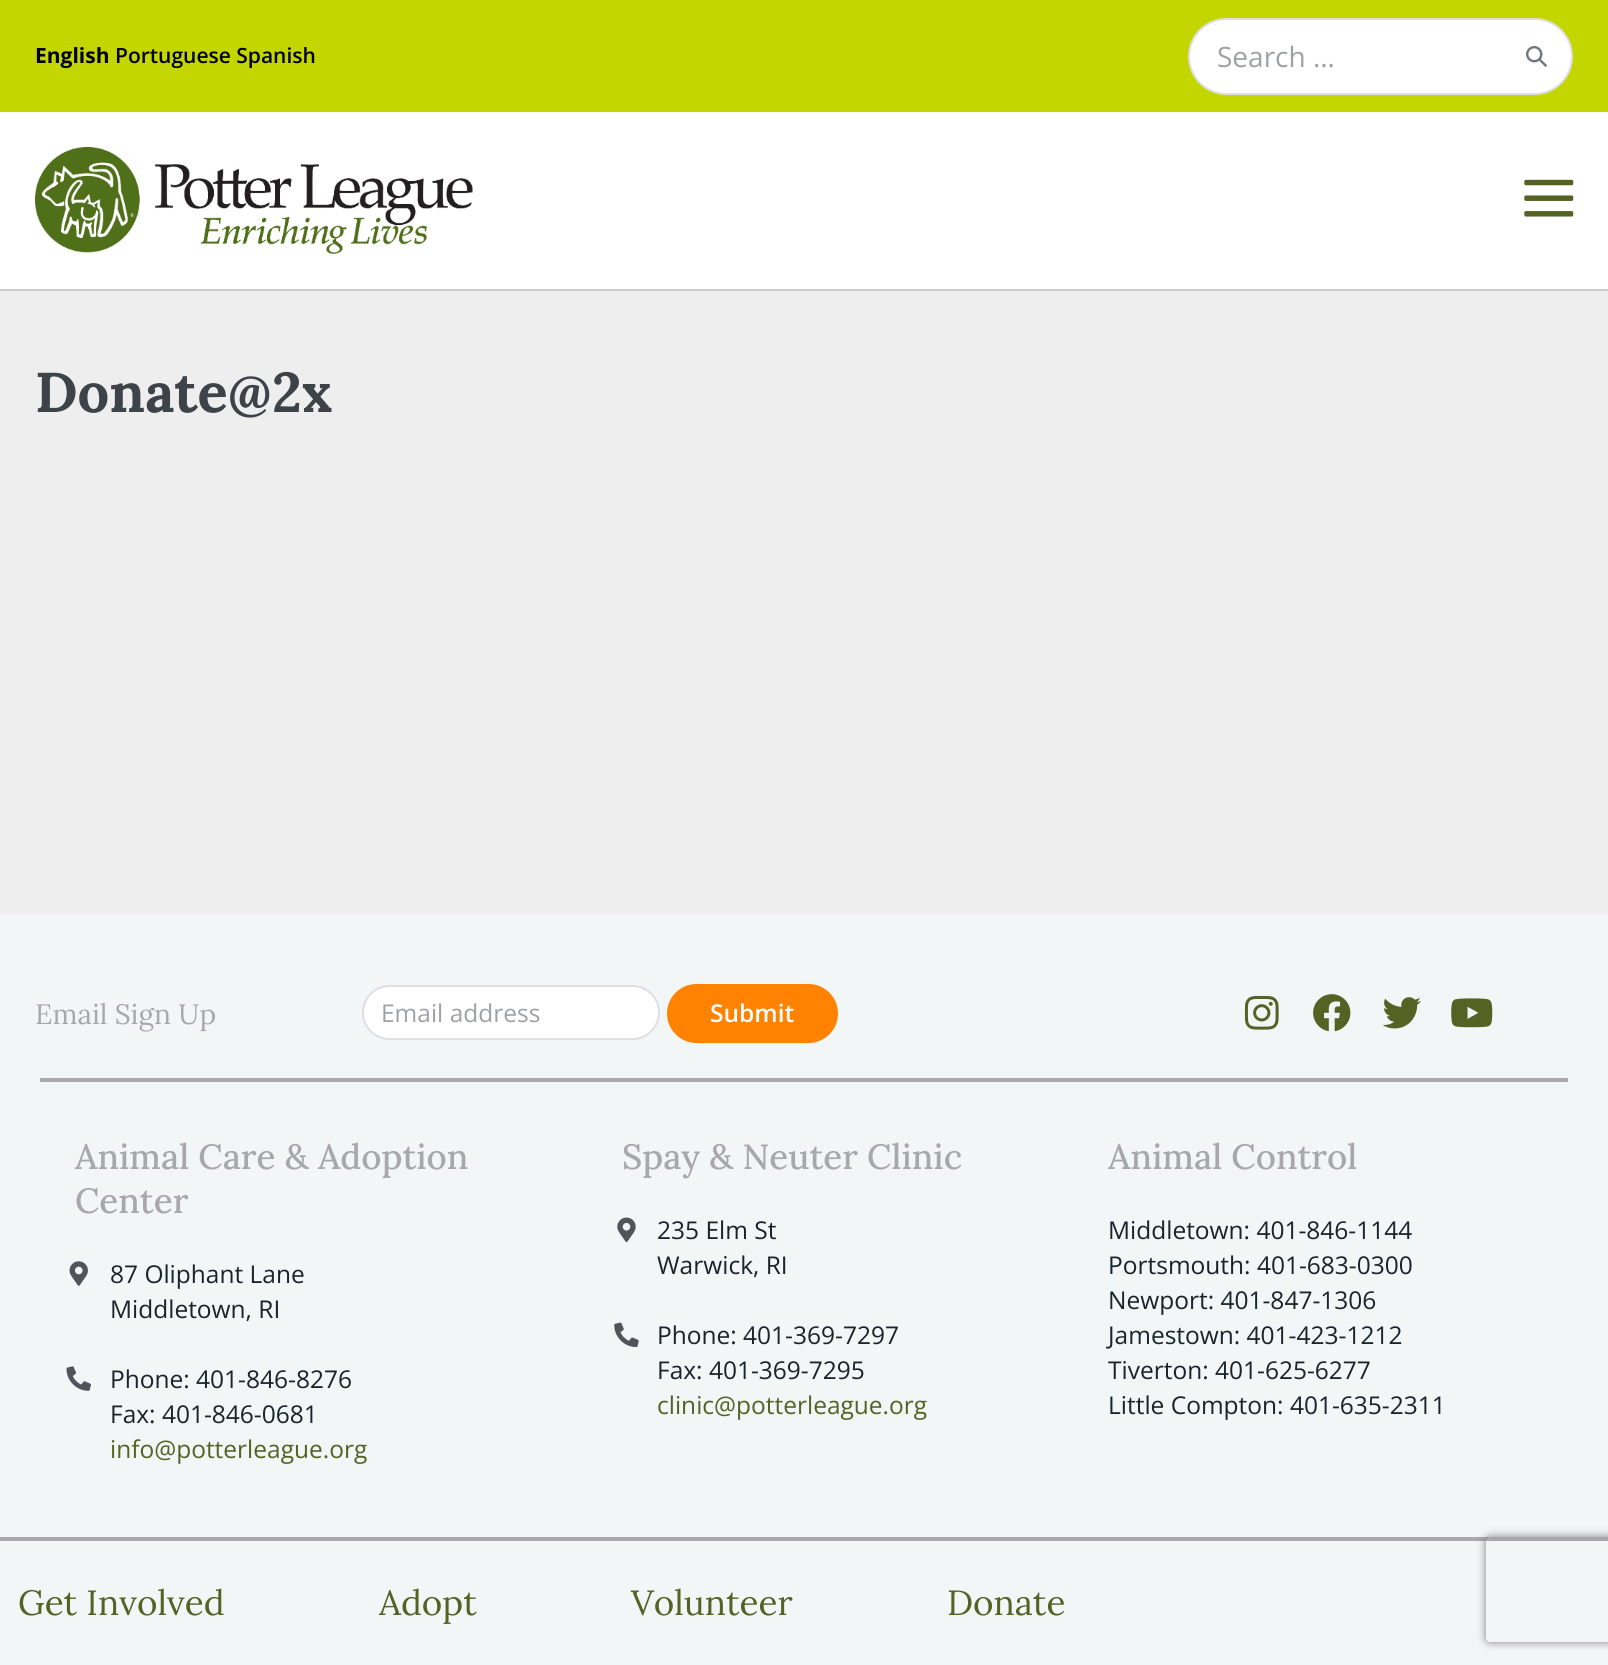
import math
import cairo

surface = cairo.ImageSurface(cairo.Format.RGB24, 1608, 1665)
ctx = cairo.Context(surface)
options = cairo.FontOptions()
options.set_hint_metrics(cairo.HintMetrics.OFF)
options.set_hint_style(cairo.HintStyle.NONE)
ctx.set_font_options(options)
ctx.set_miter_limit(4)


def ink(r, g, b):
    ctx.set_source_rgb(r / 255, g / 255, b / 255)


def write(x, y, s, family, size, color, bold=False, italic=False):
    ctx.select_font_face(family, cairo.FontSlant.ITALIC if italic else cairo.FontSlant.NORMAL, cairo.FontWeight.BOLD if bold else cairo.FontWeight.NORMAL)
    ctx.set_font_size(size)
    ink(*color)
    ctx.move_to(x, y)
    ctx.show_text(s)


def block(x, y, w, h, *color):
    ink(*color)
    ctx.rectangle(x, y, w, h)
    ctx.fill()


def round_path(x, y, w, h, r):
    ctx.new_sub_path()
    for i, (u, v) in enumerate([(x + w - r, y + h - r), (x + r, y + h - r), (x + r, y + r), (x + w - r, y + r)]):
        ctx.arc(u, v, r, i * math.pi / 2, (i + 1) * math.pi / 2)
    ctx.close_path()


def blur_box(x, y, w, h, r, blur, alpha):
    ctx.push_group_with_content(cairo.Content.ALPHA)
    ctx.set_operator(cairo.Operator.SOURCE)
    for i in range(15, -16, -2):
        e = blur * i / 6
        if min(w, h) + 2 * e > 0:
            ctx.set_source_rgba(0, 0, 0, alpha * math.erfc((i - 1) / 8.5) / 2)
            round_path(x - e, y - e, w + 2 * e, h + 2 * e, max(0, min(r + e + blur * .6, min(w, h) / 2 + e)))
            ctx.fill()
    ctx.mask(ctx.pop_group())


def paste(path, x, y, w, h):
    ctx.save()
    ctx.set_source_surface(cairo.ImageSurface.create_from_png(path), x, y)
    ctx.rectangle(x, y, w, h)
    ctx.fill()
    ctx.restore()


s1 = dict(family="Open Sans", size=21, color=(0, 0, 0), bold=True)
s2 = dict(family="Open Sans SemiBold", size=21, color=(0, 0, 0))
s3 = dict(family="Open Sans", size=28, color=(159, 161, 164))
s4 = dict(family="Lora", size=56, color=(62, 67, 73), bold=True)
s5 = dict(family="Lora", size=28, color=(168, 168, 172))
s6 = dict(family="Open Sans", size=24.5, color=(159, 161, 164))
s7 = dict(family="Open Sans SemiBold", size=24.5, color=(255, 255, 255))
s8 = dict(family="Lora Medium", size=35, color=(168, 168, 172))
s9 = dict(family="Open Sans", size=24.5, color=(26, 36, 43))
s10 = dict(family="Open Sans", size=24.5, color=(84, 98, 35))
s11 = dict(family="Lora", size=35, color=(84, 98, 35))

ink(238, 238, 238)
ctx.paint()
block(0, 0, 1608, 112, 196, 214, 0)
write(35, 63, "English", **s1)
write(115, 63, "Portuguese Spanish", **s2)
ink(255, 255, 255)
round_path(1189, 19, 383, 75, 37.5)
ctx.fill_preserve()
ink(222, 222, 229)
ctx.stroke()
write(1217, 67, "Search …", **s3)
paste("pic1.png", 1526, 46, 21, 21)
block(0, 112, 1608, 177, 255, 255, 255)
block(0, 289, 1608, 2, 204, 204, 204)
paste("pic2.png", 35, 147, 438, 107)
paste("pic3.png", 1524, 179, 50, 38)
write(35, 412, "Donate@2x", **s4)
block(0, 914, 1608, 751, 242, 246, 247)
write(35, 1024, "Email Sign Up", **s5)
ink(255, 255, 255)
round_path(363, 986, 296, 53, 26.5)
ctx.fill_preserve()
ink(222, 222, 229)
ctx.stroke()
write(381, 1022, "Email address", **s6)
ink(255, 130, 0)
round_path(667, 984, 171, 59, 29.5)
ctx.fill()
write(710, 1022, "Submit", **s7)
paste("pic4.png", 1244, 995, 35, 35)
paste("pic5.png", 1313, 994, 38, 38)
paste("pic6.png", 1382, 997, 39, 32)
paste("pic7.png", 1451, 998, 42, 30)
block(40, 1078, 1528, 4, 168, 168, 172)
write(75, 1169, "Animal Care & Adoption", **s8)
write(75, 1213, "Center", **s8)
paste("pic8.png", 69, 1261, 19, 25)
write(110, 1283, "87 Oliphant Lane", **s9)
write(110, 1318, "Middletown, RI", **s9)
paste("pic9.png", 66, 1366, 25, 25)
write(110, 1388, "Phone: 401-846-8276", **s9)
write(110, 1423, "Fax: 401-846-0681", **s9)
write(110, 1458, "info@potterleague.org", **s10)
write(622, 1169, "Spay & Neuter Clinic", **s8)
paste("pic10.png", 617, 1217, 19, 25)
write(657, 1239, "235 Elm St", **s9)
write(657, 1274, "Warwick, RI", **s9)
paste("pic11.png", 614, 1322, 25, 26)
write(657, 1344, "Phone: 401-369-7297", **s9)
write(657, 1379, "Fax: 401-369-7295", **s9)
write(657, 1414, "clinic@potterleague.org", **s10)
write(1108, 1169, "Animal Control", **s8)
write(1108, 1239, "Middletown: 401-846-1144", **s9)
write(1108, 1274, "Portsmouth: 401-683-0300", **s9)
write(1108, 1309, "Newport: 401-847-1306", **s9)
write(1108, 1344, "Jamestown: 401-423-1212", **s9)
write(1108, 1379, "Tiverton: 401-625-6277", **s9)
write(1108, 1414, "Little Compton: 401-635-2311", **s9)
block(0, 1537, 1608, 4, 168, 168, 172)
write(18, 1615, "Get Involved", **s11)
write(379, 1615, "Adopt", **s11)
write(631, 1615, "Volunteer", **s11)
write(947, 1615, "Donate", **s11)
ctx.save()
ctx.set_fill_rule(cairo.FillRule.EVEN_ODD)
ctx.new_path()
ctx.move_to(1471, 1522)
ctx.line_to(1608, 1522)
ctx.line_to(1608, 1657)
ctx.line_to(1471, 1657)
ctx.close_path()
ctx.move_to(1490, 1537)
ctx.line_to(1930, 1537)
ctx.curve_to(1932, 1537, 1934, 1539, 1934, 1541)
ctx.line_to(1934, 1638)
ctx.curve_to(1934, 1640, 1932, 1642, 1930, 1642)
ctx.line_to(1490, 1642)
ctx.curve_to(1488, 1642, 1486, 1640, 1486, 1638)
ctx.line_to(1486, 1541)
ctx.curve_to(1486, 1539, 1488, 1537, 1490, 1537)
ctx.close_path()
ctx.clip()
ink(128, 128, 128)
blur_box(1486, 1537, 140, 105, 4, 4.5, 1)
ctx.restore()
surface.write_to_png("screenshot.png")
